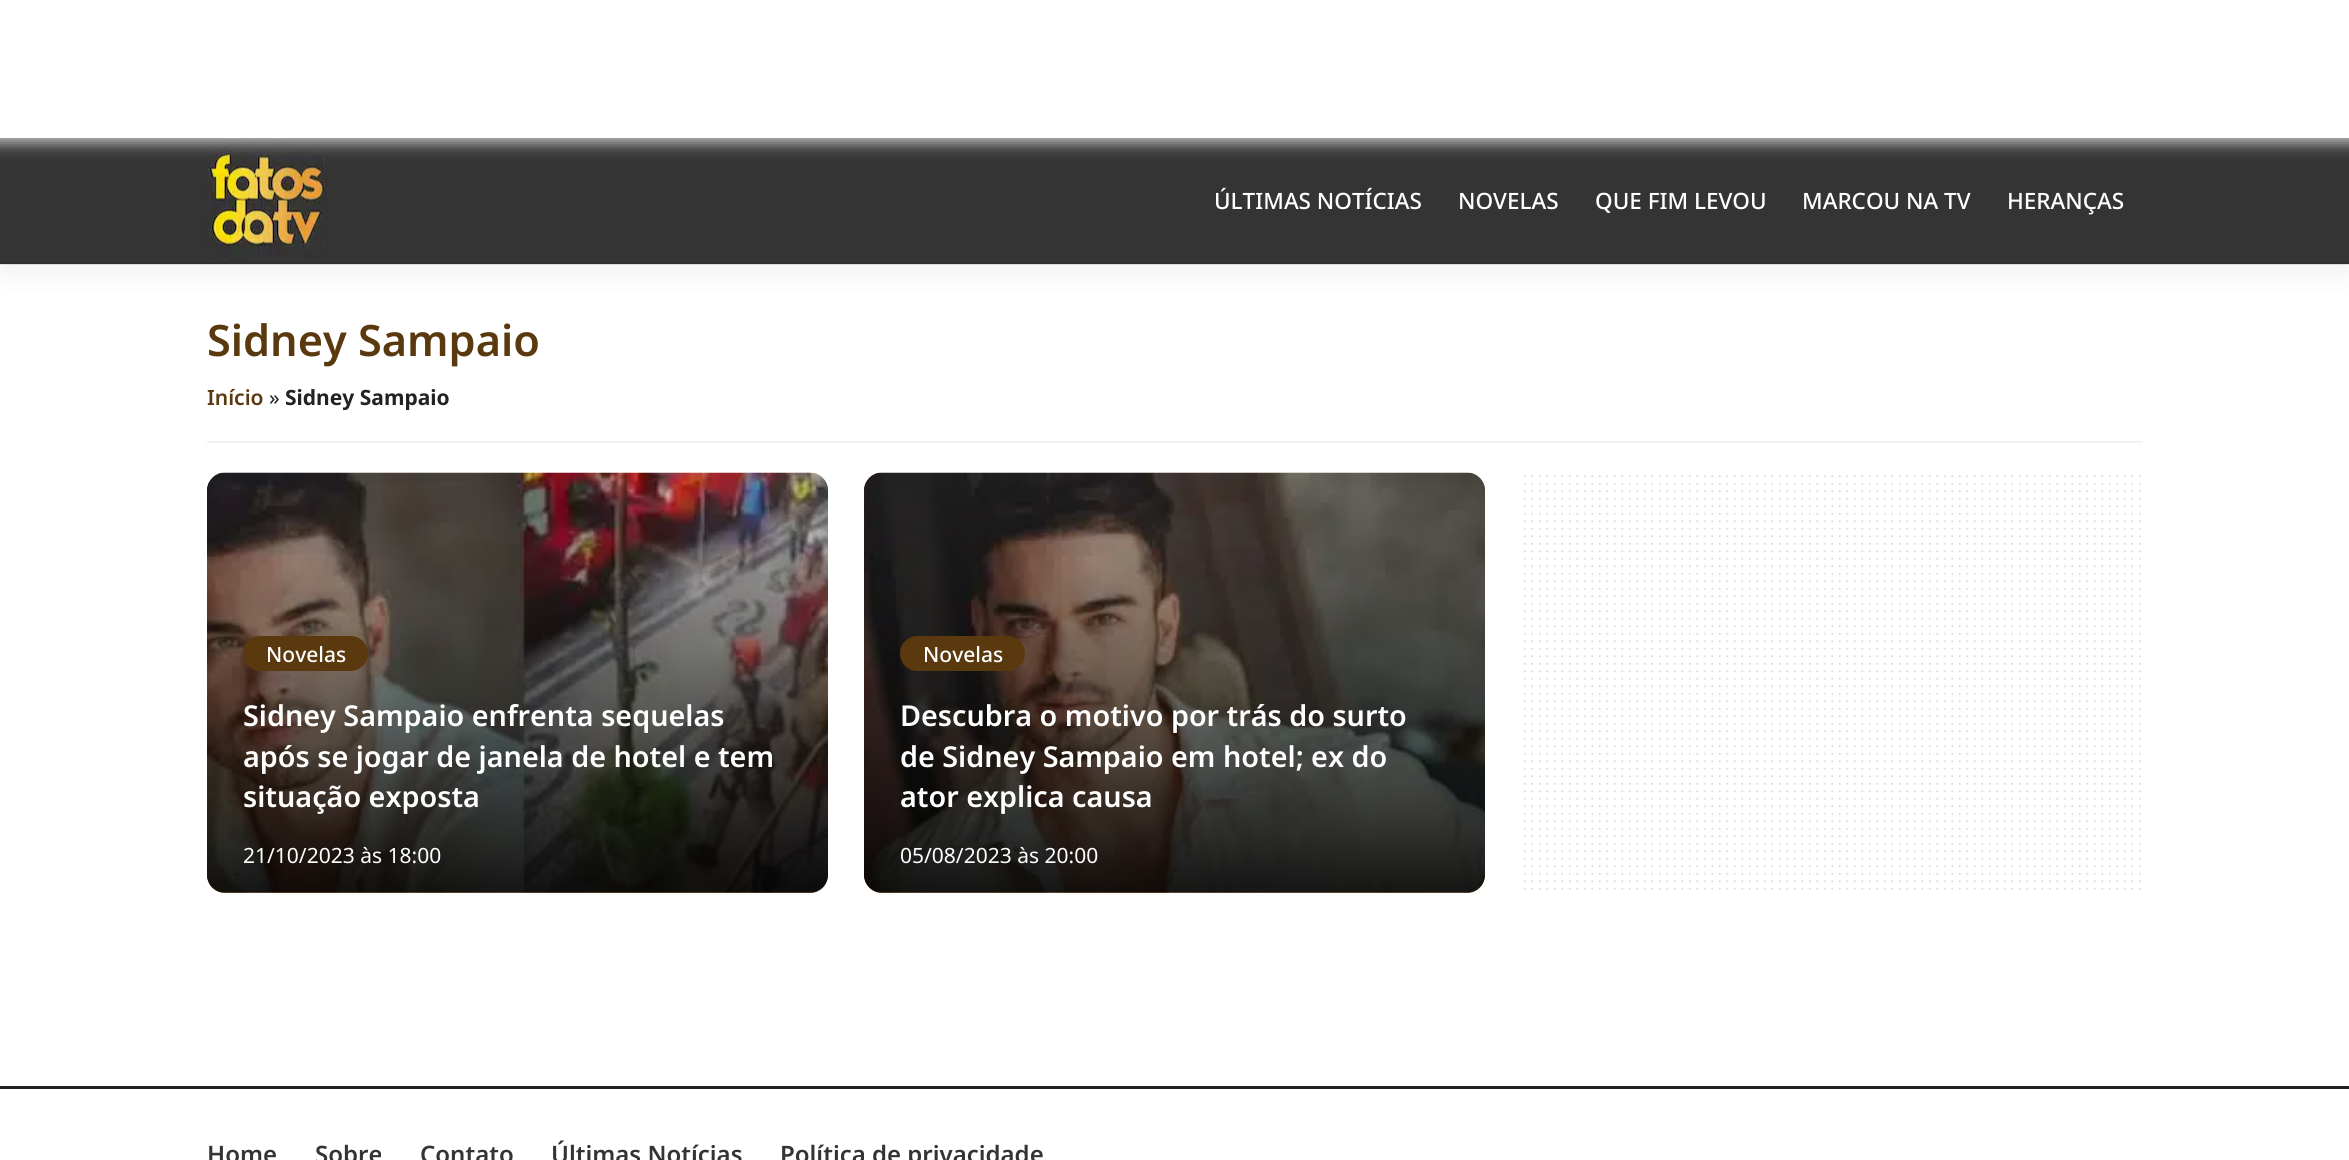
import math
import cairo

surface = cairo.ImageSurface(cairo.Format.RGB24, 2349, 1160)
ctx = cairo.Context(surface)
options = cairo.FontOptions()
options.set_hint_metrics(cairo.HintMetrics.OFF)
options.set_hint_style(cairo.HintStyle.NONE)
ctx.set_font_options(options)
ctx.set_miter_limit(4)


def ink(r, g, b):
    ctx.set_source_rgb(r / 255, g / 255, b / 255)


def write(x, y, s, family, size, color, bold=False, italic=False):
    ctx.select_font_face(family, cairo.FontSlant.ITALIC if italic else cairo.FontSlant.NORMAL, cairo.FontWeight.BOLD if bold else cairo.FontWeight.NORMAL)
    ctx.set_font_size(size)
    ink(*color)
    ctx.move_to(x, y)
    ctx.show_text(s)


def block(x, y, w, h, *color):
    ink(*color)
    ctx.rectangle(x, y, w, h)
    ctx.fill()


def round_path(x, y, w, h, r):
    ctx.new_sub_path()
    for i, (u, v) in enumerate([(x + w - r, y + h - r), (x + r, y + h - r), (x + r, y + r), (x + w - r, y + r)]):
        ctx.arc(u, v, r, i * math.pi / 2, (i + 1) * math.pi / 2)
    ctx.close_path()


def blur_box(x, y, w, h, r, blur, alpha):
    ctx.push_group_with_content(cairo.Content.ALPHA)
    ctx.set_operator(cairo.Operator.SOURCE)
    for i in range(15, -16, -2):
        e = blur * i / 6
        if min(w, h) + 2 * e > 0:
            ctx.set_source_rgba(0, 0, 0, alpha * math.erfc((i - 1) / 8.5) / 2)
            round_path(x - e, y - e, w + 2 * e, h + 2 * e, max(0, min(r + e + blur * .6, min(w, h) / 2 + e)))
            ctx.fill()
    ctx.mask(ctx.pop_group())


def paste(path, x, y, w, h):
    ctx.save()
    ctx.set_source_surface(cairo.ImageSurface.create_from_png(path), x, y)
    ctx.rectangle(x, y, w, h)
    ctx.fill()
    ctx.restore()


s1 = dict(family="Noto Sans Medium", size=22.5, color=(255, 255, 255))
s2 = dict(family="Noto Sans SemiBold", size=43.25, color=(89, 57, 13))
s3 = dict(family="Noto Sans SemiBold", size=21, color=(89, 57, 13))
s4 = dict(family="Noto Sans", size=21, color=(34, 34, 34))
s5 = dict(family="Noto Sans", size=21, color=(34, 34, 34), bold=True)
s6 = dict(family="Noto Sans Medium", size=21, color=(255, 255, 255))
s7 = dict(family="Noto Sans SemiBold", size=28.75, color=(255, 255, 255))
s8 = dict(family="Noto Sans", size=21, color=(255, 255, 255))
s9 = dict(family="Noto Sans SemiBold", size=24, color=(53, 52, 52))

ink(255, 255, 255)
ctx.paint()
ink(0, 0, 0)
blur_box(0, 147, 2349, 129, 0, 12, 0.05)
block(0, 138, 2349, 126, 53, 52, 52)
paste("pic1.png", 207, 143, 120, 118)
ink(196, 196, 196)
blur_box(-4, -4, 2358, 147, 0, 7.5, 1)
block(0, 0, 2349, 138, 255, 255, 255)
ctx.set_source_rgba(0, 0, 0, 0.1)
ctx.rectangle(0, 263, 2349, 2)
ctx.fill()
write(1214, 209, "ÚLTIMAS NOTÍCIAS", **s1)
write(1458, 209, "NOVELAS", **s1)
write(1595, 209, "QUE FIM LEVOU", **s1)
write(1802, 209, "MARCOU NA TV", **s1)
write(2007, 209, "HERANÇAS", **s1)
block(207, 441, 1935, 2, 242, 242, 242)
write(207, 356, "Sidney Sampaio", **s2)
write(207, 405, "Início", **s3)
write(269, 405, "»", **s4)
write(285, 405, "Sidney Sampaio", **s5)
ink(89, 57, 13)
round_path(207, 473, 621, 420, 18)
ctx.fill()
paste("pic2.png", 207, 472, 621, 421)
round_path(243, 636, 125, 35, 17.5)
ctx.fill()
write(266, 662, "Novelas", **s6)
write(243, 726, "Sidney Sampaio enfrenta sequelas", **s7)
write(243, 767, "após se jogar de janela de hotel e tem", **s7)
write(243, 807, "situação exposta", **s7)
write(243, 863, "21/10/2023 às 18:00", **s8)
ink(89, 57, 13)
round_path(864, 473, 621, 420, 18)
ctx.fill()
paste("pic3.png", 864, 472, 621, 421)
round_path(900, 636, 125, 35, 17.5)
ctx.fill()
write(923, 662, "Novelas", **s6)
write(900, 726, "Descubra o motivo por trás do surto", **s7)
write(900, 767, "de Sidney Sampaio em hotel; ex do", **s7)
write(900, 807, "ator explica causa", **s7)
write(900, 863, "05/08/2023 às 20:00", **s8)
paste("pic4.png", 1523, 475, 618, 415)
block(0, 1086, 2349, 3, 34, 34, 34)
write(207, 1163, "Home", **s9)
write(315, 1163, "Sobre", **s9)
write(420, 1163, "Contato", **s9)
write(551, 1163, "Últimas Notícias", **s9)
write(780, 1163, "Política de privacidade", **s9)
surface.write_to_png("screenshot.png")
